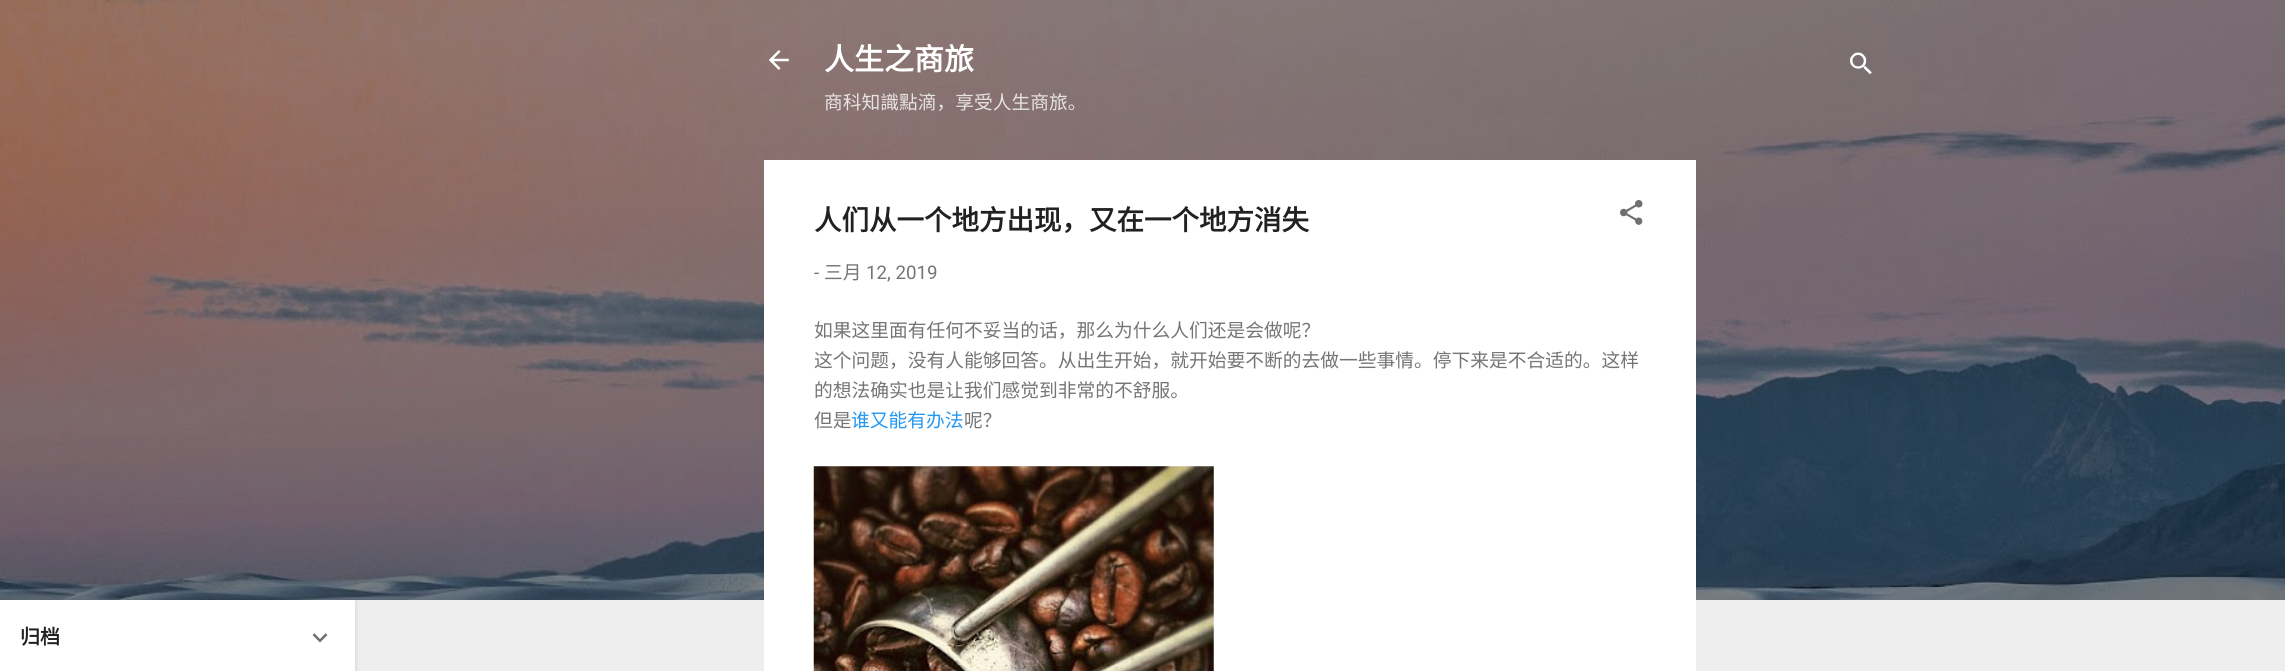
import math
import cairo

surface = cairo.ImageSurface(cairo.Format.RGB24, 2285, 671)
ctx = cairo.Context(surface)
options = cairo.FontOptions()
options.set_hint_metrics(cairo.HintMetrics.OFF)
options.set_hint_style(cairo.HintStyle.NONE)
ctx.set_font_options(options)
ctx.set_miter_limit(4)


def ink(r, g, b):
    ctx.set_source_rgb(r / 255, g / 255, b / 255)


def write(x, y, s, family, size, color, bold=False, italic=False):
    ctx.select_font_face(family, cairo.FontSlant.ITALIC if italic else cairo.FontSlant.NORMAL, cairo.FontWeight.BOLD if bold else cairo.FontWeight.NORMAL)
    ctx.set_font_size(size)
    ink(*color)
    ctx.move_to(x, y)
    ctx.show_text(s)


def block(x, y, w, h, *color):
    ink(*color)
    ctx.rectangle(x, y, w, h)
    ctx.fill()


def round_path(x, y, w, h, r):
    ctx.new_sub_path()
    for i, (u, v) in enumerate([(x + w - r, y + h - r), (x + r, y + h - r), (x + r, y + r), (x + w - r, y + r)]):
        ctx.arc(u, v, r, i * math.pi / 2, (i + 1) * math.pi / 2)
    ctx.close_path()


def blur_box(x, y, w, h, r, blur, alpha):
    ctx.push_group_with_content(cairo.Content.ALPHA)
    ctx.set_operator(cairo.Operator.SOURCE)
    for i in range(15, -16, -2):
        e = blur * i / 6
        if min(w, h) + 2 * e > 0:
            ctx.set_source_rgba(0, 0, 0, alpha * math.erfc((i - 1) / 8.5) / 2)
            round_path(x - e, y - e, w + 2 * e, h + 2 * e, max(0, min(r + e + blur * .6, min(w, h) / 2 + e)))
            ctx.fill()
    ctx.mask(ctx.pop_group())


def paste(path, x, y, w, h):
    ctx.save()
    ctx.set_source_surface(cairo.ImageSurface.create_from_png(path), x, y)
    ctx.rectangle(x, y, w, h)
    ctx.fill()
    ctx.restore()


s1 = dict(family="Noto Sans CJK SC", size=30, color=(255, 255, 255), bold=True)
s2 = dict(family="Noto Sans CJK SC", size=18.75, color=(231, 227, 227))
s3 = dict(family="Noto Sans CJK SC", size=27.5, color=(33, 33, 33), bold=True)
s4 = dict(family="Roboto", size=18.75, color=(117, 117, 117))
s5 = dict(family="Noto Sans CJK SC", size=18.75, color=(117, 117, 117))
s6 = dict(family="Noto Sans CJK SC", size=18.75, color=(33, 150, 243))
s7 = dict(family="Noto Sans CJK SC", size=20, color=(33, 33, 33), bold=True)

ink(238, 238, 238)
ctx.paint()
paste("pic1.png", 0, 0, 2285, 600)
paste("pic2.png", 769, 50, 20, 20)
write(824, 70, "人生之商旅", **s1)
write(824, 109, "商科知識點滴，享受人生商旅。", **s2)
paste("pic3.png", 1850, 52, 22, 23)
block(764, 160, 932, 511, 255, 255, 255)
write(814, 230, "人们从一个地方出现，又在一个地方消失", **s3)
paste("pic4.png", 1620, 200, 23, 25)
write(814, 279, "-", **s4)
write(824, 279, "三月", **s5)
write(866, 279, "12, 2019", **s4)
write(814, 337, "如果这里面有任何不妥当的话，那么为什么人们还是会做呢？", **s5)
write(814, 367, "这个问题，没有人能够回答。从出生开始，就开始要不断的去做一些事情。停下来是不合适的。这样", **s5)
write(814, 397, "的想法确实也是让我们感觉到非常的不舒服。", **s5)
write(814, 427, "但是", **s5)
write(851, 427, "谁又能有办法", **s6)
write(964, 427, "呢？", **s5)
paste("pic5.png", 813, 466, 401, 205)
ink(0, 0, 0)
blur_box(1, 601, 355, 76, 0, 2, 0.1)
block(0, 600, 355, 71, 255, 255, 255)
write(20, 644, "归档", **s7)
paste("pic6.png", 312, 633, 16, 10)
surface.write_to_png("screenshot.png")
